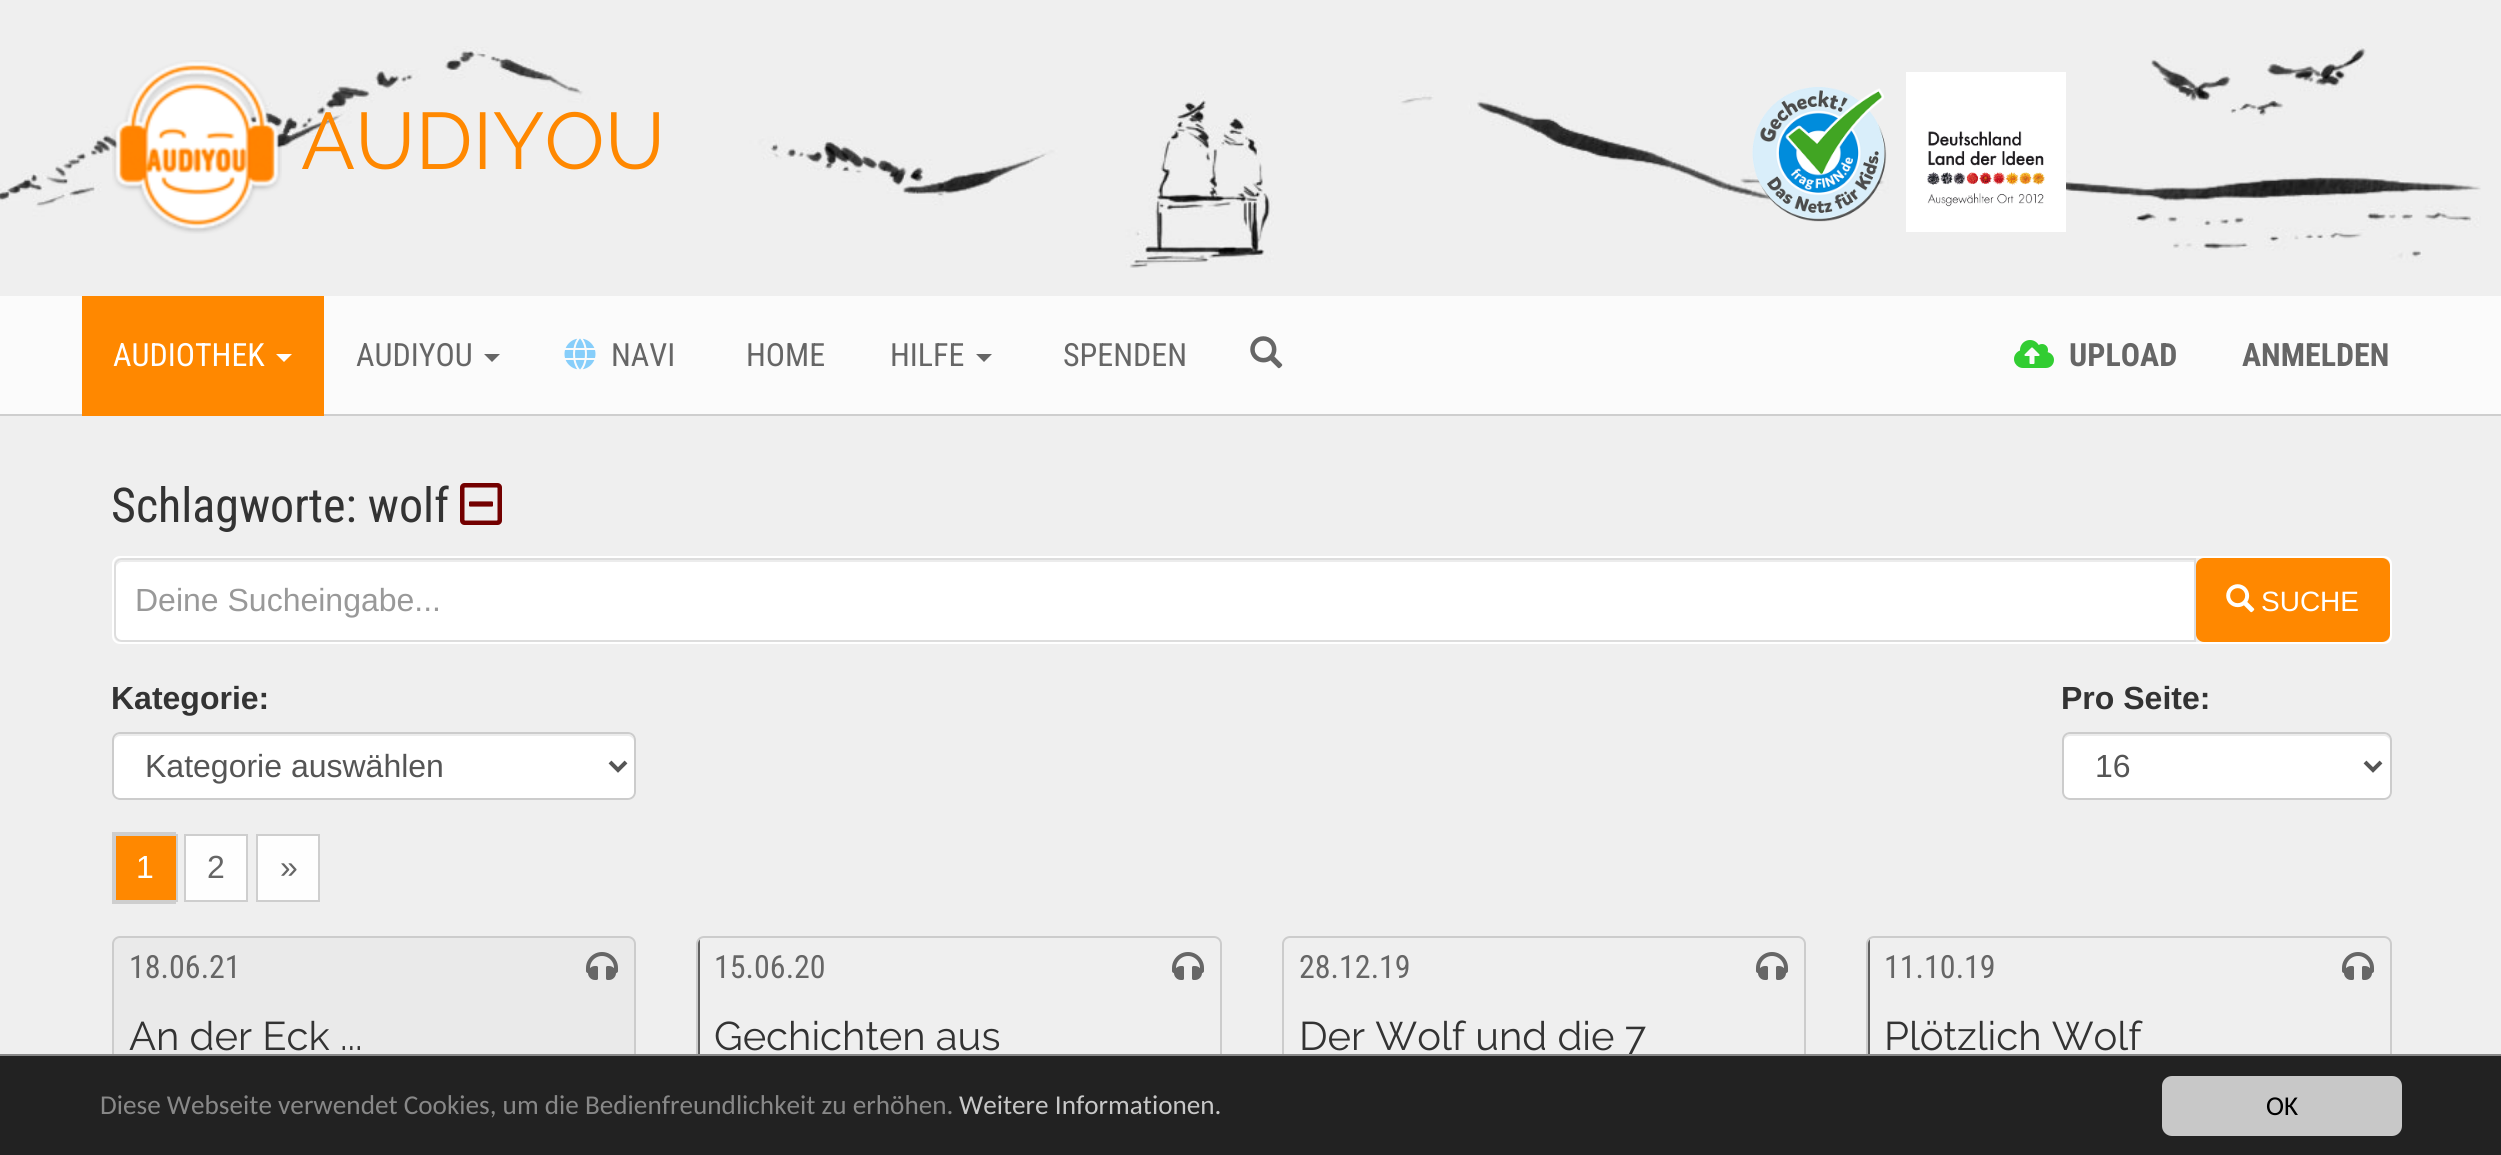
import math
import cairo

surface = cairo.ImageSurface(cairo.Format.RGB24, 2501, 1155)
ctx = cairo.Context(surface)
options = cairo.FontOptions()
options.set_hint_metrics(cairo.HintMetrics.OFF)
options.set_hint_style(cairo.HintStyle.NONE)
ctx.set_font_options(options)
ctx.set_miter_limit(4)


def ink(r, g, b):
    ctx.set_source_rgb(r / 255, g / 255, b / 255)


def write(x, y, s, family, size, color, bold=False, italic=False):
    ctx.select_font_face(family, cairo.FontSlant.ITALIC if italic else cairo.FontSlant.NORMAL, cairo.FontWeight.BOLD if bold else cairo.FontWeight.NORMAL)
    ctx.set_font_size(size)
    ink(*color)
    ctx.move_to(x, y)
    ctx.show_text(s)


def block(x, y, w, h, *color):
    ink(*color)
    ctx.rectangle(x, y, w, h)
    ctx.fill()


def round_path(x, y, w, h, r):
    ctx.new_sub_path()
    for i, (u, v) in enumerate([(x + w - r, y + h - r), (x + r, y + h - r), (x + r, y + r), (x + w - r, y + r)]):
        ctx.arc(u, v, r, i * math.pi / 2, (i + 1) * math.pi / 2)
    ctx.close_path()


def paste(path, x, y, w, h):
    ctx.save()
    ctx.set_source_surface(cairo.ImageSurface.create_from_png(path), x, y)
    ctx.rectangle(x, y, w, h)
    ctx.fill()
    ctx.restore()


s1 = dict(family="Raleway Thin", size=80, color=(255, 136, 0))
s2 = dict(family="Roboto Condensed", size=32, color=(255, 255, 255))
s3 = dict(family="Roboto Condensed", size=32, color=(102, 102, 102))
s4 = dict(family="Roboto Condensed", size=32, color=(102, 102, 102), bold=True)
s5 = dict(family="Roboto Condensed", size=48, color=(51, 51, 51))
s6 = dict(family="Liberation Sans", size=32, color=(153, 153, 153))
s7 = dict(family="Liberation Sans", size=28, color=(255, 255, 255))
s8 = dict(family="Liberation Sans", size=32, color=(51, 51, 51), bold=True)
s9 = dict(family="Liberation Sans", size=32, color=(85, 85, 85))
s10 = dict(family="Liberation Sans", size=32, color=(255, 255, 255))
s11 = dict(family="Liberation Sans", size=32, color=(102, 102, 102))
s12 = dict(family="Raleway Thin", size=40, color=(51, 51, 51))
s13 = dict(family="Carlito", size=27.2, color=(136, 136, 136))
s14 = dict(family="Carlito", size=27.2, color=(200, 200, 200))
s15 = dict(family="Carlito", size=27.2, color=(0, 0, 0))

ink(239, 239, 239)
ctx.paint()
paste("pic1.png", 0, 46, 2481, 222)
paste("pic2.png", 112, 60, 170, 174)
write(301, 169, "AUDIYOU", **s1)
paste("pic3.png", 1752, 87, 135, 135)
paste("pic4.png", 1906, 72, 160, 160)
block(0, 296, 2501, 118, 251, 251, 251)
block(0, 414, 2501, 2, 206, 206, 206)
block(82, 296, 242, 120, 255, 136, 0)
write(113, 366, "AUDIOTHEK", **s2)
ctx.new_path()
ctx.move_to(276, 354)
ctx.line_to(292, 354)
ctx.line_to(284, 362)
ctx.close_path()
ctx.fill()
write(356, 366, "AUDIYOU", **s3)
ctx.new_path()
ctx.move_to(484, 354)
ctx.line_to(500, 354)
ctx.line_to(492, 362)
ctx.close_path()
ctx.fill()
paste("pic5.png", 564, 338, 32, 32)
write(611, 366, "NAVI", **s3)
write(746, 366, "HOME", **s3)
write(890, 366, "HILFE", **s3)
ctx.new_path()
ctx.move_to(976, 354)
ctx.line_to(992, 354)
ctx.line_to(984, 362)
ctx.close_path()
ctx.fill()
write(1063, 366, "SPENDEN", **s3)
paste("pic6.png", 1250, 336, 33, 33)
paste("pic7.png", 2014, 340, 40, 28)
write(2069, 366, "UPLOAD", **s4)
write(2242, 366, "ANMELDEN", **s4)
write(111, 522, "Schlagworte: wolf", **s5)
paste("pic8.png", 460, 483, 42, 42)
round_path(113, 557, 2278, 86, 7)
ink(255, 255, 255)
ctx.stroke()
ctx.new_path()
ctx.move_to(122, 558)
ctx.line_to(2196, 558)
ctx.line_to(2196, 642)
ctx.line_to(122, 642)
ctx.curve_to(117.5, 642, 114, 638.5, 114, 634)
ctx.line_to(114, 566)
ctx.curve_to(114, 561.5, 117.5, 558, 122, 558)
ctx.close_path()
ctx.fill()
ink(236, 236, 236)
ctx.new_path()
ctx.move_to(122, 562)
ctx.line_to(2194, 562)
ctx.line_to(2194, 560)
ctx.line_to(122, 560)
ctx.curve_to(117, 560, 116, 564, 116, 568)
ctx.curve_to(116, 565, 119, 562, 122, 562)
ctx.close_path()
ctx.fill()
ctx.new_path()
ctx.move_to(122, 559)
ctx.line_to(2195, 559)
ctx.line_to(2195, 641)
ctx.line_to(122, 641)
ctx.curve_to(118, 641, 115, 638, 115, 634)
ctx.line_to(115, 566)
ctx.curve_to(115, 562, 118, 559, 122, 559)
ctx.close_path()
ink(221, 221, 221)
ctx.stroke()
write(135, 611, "Deine Sucheingabe...", **s6)
ink(255, 136, 0)
round_path(2196, 558, 194, 84, 8)
ctx.fill()
paste("pic9.png", 2226, 584, 29, 29)
write(2261, 611, "SUCHE", **s7)
write(111, 709, "Kategorie:", **s8)
ink(255, 255, 255)
round_path(112, 732, 524, 68, 8)
ctx.fill()
ink(236, 236, 236)
ctx.new_path()
ctx.move_to(120, 736)
ctx.line_to(628, 736)
ctx.curve_to(631, 736, 634, 739, 634, 742)
ctx.line_to(634, 740)
ctx.curve_to(634, 737, 631, 734, 628, 734)
ctx.line_to(120, 734)
ctx.curve_to(117, 734, 114, 737, 114, 740)
ctx.line_to(114, 742)
ctx.curve_to(114, 739, 117, 736, 120, 736)
ctx.close_path()
ctx.fill()
round_path(113, 733, 522, 66, 7)
ink(204, 204, 204)
ctx.stroke()
ctx.new_path()
ctx.move_to(610, 762)
ctx.line_to(618, 770)
ctx.line_to(626, 762)
ink(85, 85, 85)
ctx.set_line_width(4)
ctx.stroke()
write(145, 777, "Kategorie auswählen", **s9)
write(2061, 709, "Pro Seite:", **s8)
ink(255, 255, 255)
round_path(2062, 732, 330, 68, 8)
ctx.fill()
ink(236, 236, 236)
ctx.new_path()
ctx.move_to(2070, 736)
ctx.line_to(2384, 736)
ctx.curve_to(2387, 736, 2390, 739, 2390, 742)
ctx.curve_to(2390, 738, 2389, 734, 2384, 734)
ctx.line_to(2070, 734)
ctx.curve_to(2065, 734, 2064, 738, 2064, 742)
ctx.curve_to(2064, 739, 2067, 736, 2070, 736)
ctx.close_path()
ctx.fill()
round_path(2063, 733, 328, 66, 7)
ink(204, 204, 204)
ctx.set_line_width(2)
ctx.stroke()
ctx.new_path()
ctx.move_to(2365, 762)
ctx.line_to(2373, 770)
ctx.line_to(2381, 762)
ink(85, 85, 85)
ctx.set_line_width(4)
ctx.stroke()
write(2095, 777, "16", **s9)
ctx.rectangle(113, 833, 62, 70)
ink(206, 206, 206)
ctx.set_line_width(2)
ctx.stroke()
ink(255, 136, 0)
ctx.rectangle(115, 835, 62, 66)
ctx.fill_preserve()
ink(206, 206, 206)
ctx.stroke()
write(136, 878, "1", **s10)
ink(254, 254, 254)
ctx.rectangle(185, 835, 62, 66)
ctx.fill_preserve()
ink(206, 206, 206)
ctx.stroke()
write(207, 878, "2", **s11)
ink(254, 254, 254)
ctx.rectangle(257, 835, 62, 66)
ctx.fill_preserve()
ink(206, 206, 206)
ctx.stroke()
write(280, 878, "»", **s11)
ink(234, 234, 234)
round_path(113, 937, 522, 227, 7)
ctx.fill_preserve()
ink(204, 204, 204)
ctx.stroke()
write(129, 978, "18.06.21", **s3)
paste("pic10.png", 586, 952, 32, 28)
write(129, 1050, "An der Eck ...", **s12)
round_path(697, 937, 524, 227, 7)
ink(204, 204, 204)
ctx.stroke()
ctx.save()
round_path(698, 938, 522, 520, 6)
ctx.clip()
ctx.set_source_rgba(0, 0, 0, 0.6)
ctx.rectangle(698, 938, 2, 116)
ctx.fill()
ctx.restore()
write(714, 978, "15.06.20", **s3)
paste("pic11.png", 1172, 952, 32, 28)
write(714, 1050, "Gechichten aus", **s12)
round_path(1283, 937, 522, 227, 7)
ink(204, 204, 204)
ctx.stroke()
write(1299, 978, "28.12.19", **s3)
paste("pic11.png", 1756, 952, 32, 28)
write(1299, 1050, "Der Wolf und die 7", **s12)
round_path(1867, 937, 524, 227, 7)
ink(204, 204, 204)
ctx.stroke()
ctx.save()
round_path(1868, 938, 522, 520, 6)
ctx.clip()
ctx.set_source_rgba(0, 0, 0, 0.6)
ctx.rectangle(1868, 938, 2, 116)
ctx.fill()
ctx.restore()
write(1884, 978, "11.10.19", **s3)
paste("pic11.png", 2342, 952, 32, 28)
write(1884, 1050, "Plötzlich Wolf", **s12)
block(0, 1056, 2501, 99, 34, 34, 34)
block(0, 1054, 2501, 2, 136, 136, 136)
write(100, 1114, "Diese Webseite verwendet Cookies, um die Bedienfreundlichkeit zu erhöhen.", **s13)
write(959, 1114, "Weitere Informationen.", **s14)
round_path(2162, 1076, 240, 60, 10)
ctx.fill()
write(2266, 1115, "OK", **s15)
surface.write_to_png("screenshot.png")
